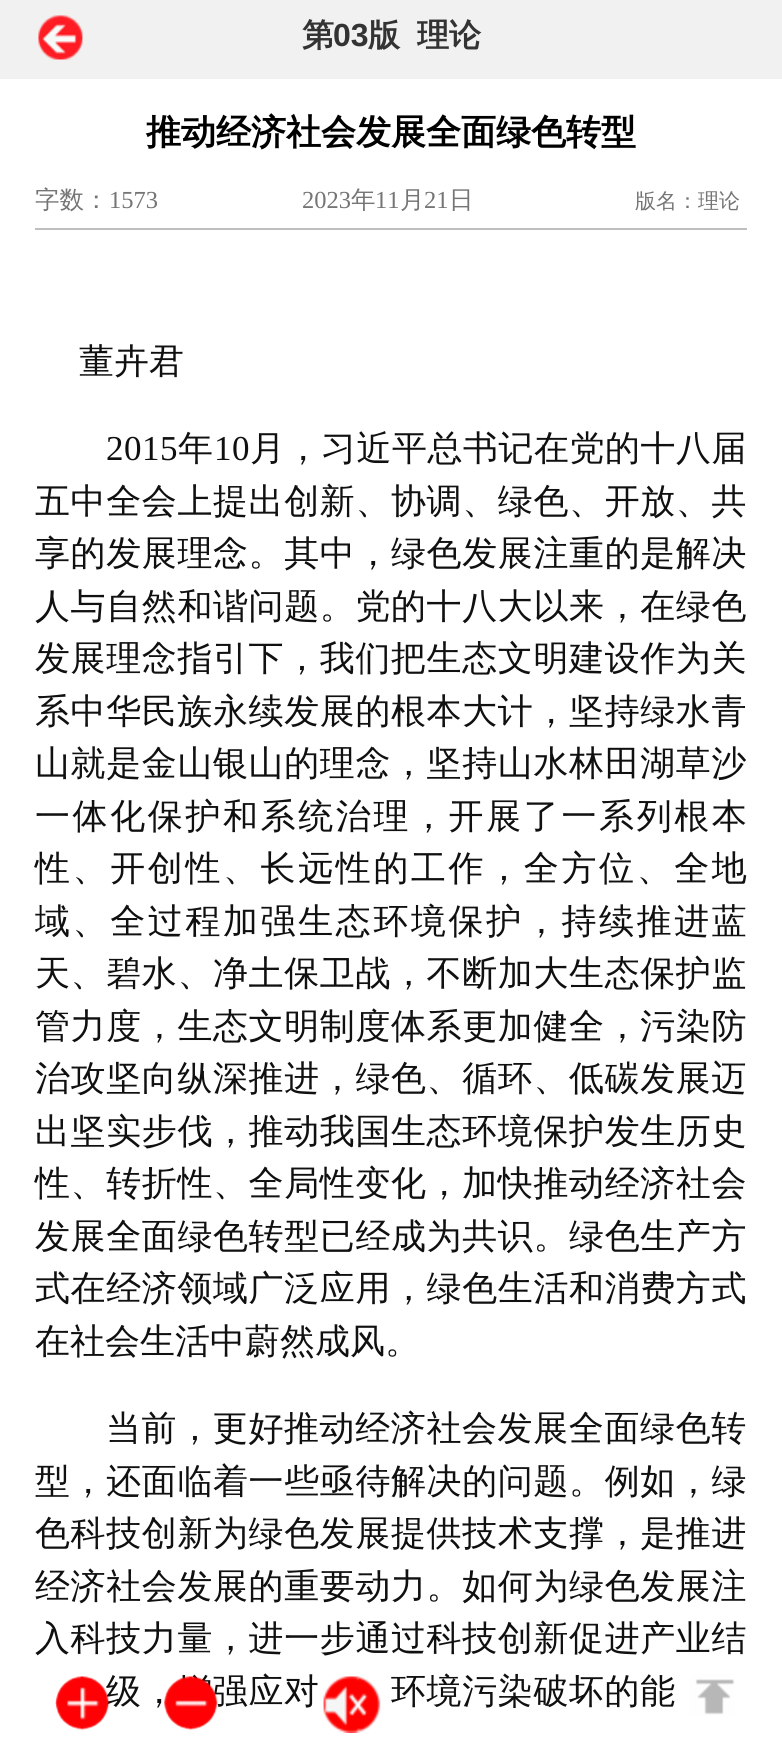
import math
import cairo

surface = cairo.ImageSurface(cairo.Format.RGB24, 782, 1738)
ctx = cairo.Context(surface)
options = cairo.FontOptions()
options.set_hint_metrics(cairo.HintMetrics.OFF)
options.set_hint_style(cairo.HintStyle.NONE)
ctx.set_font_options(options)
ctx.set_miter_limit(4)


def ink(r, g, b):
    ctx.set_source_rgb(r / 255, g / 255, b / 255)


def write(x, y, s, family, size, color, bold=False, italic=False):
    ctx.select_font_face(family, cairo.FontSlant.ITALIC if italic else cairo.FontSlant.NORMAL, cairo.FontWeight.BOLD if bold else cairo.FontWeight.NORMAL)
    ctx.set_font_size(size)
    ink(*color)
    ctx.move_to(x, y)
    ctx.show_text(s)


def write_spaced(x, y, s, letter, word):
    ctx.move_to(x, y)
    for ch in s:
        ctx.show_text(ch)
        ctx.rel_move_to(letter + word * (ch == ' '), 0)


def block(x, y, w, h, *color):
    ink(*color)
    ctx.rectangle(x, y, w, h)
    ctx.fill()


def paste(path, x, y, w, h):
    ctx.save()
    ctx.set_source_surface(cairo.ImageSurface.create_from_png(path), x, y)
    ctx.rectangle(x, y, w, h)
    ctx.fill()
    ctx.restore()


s1 = dict(family="WenQuanYi Zen Hei", size=32, color=(51, 51, 51), bold=True)
s2 = dict(family="Liberation Sans", size=32, color=(51, 51, 51), bold=True)
s3 = dict(family="WenQuanYi Zen Hei", size=35, color=(0, 0, 0), bold=True)
s4 = dict(family="WenQuanYi Zen Hei Medium", size=24.5, color=(117, 117, 117))
s5 = dict(family="Liberation Serif", size=24.5, color=(117, 117, 117))
s6 = dict(family="WenQuanYi Zen Hei Medium", size=21, color=(117, 117, 117))
s7 = dict(family="WenQuanYi Zen Hei Medium", size=35, color=(16, 16, 16))

ink(255, 255, 255)
ctx.paint()
block(0, 0, 782, 79, 241, 241, 241)
paste("pic1.png", 38, 15, 45, 45)
write(302, 46, "第", **s1)
write(333, 46, "03", **s2)
write(368, 46, "版", **s1)
write(417, 46, "理论", **s1)
block(35, 228, 712, 2, 191, 191, 191)
write(146, 144, "推动经济社会发展全面绿色转型", **s3)
write(35, 208, "字数：", **s4)
write(109, 208, "1573", **s5)
write(302, 208, "2023", **s5)
write(351, 208, "年", **s4)
write(375, 208, "11", **s5)
write(400, 208, "月", **s4)
write(424, 208, "21", **s5)
write(449, 208, "日", **s4)
write(635, 208, "版名：理论", **s6)
write(79, 373, "董卉君", **s7)
ctx.select_font_face("Liberation Serif")
write_spaced(106, 460, "2015", 0.5, 0)
ctx.select_font_face("WenQuanYi Zen Hei Medium")
write_spaced(178, 460, "年", 0.5, 0)
ctx.select_font_face("Liberation Serif")
write_spaced(214, 460, "10", 0.5, 0)
ctx.select_font_face("WenQuanYi Zen Hei Medium")
write_spaced(250, 460, "月，习近平总书记在党的十八届", 0.5, 0)
write_spaced(35, 513, "五中全会上提出创新、协调、绿色、开放、共", 0.6, 0)
write_spaced(35, 565, "享的发展理念。其中，绿色发展注重的是解决", 0.6, 0)
write_spaced(35, 618, "人与自然和谐问题。党的十八大以来，在绿色", 0.6, 0)
write_spaced(35, 670, "发展理念指引下，我们把生态文明建设作为关", 0.6, 0)
write_spaced(35, 723, "系中华民族永续发展的根本大计，坚持绿水青", 0.6, 0)
write_spaced(35, 775, "山就是金山银山的理念，坚持山水林田湖草沙", 0.6, 0)
write_spaced(35, 828, "一体化保护和系统治理，开展了一系列根本", 2.6, 0)
write_spaced(35, 880, "性、开创性、长远性的工作，全方位、全地", 2.6, 0)
write_spaced(35, 933, "域、全过程加强生态环境保护，持续推进蓝", 2.6, 0)
write_spaced(35, 985, "天、碧水、净土保卫战，不断加大生态保护监", 0.6, 0)
write_spaced(35, 1038, "管力度，生态文明制度体系更加健全，污染防", 0.6, 0)
write_spaced(35, 1090, "治攻坚向纵深推进，绿色、循环、低碳发展迈", 0.6, 0)
write_spaced(35, 1143, "出坚实步伐，推动我国生态环境保护发生历史", 0.6, 0)
write_spaced(35, 1195, "性、转折性、全局性变化，加快推动经济社会", 0.6, 0)
write_spaced(35, 1248, "发展全面绿色转型已经成为共识。绿色生产方", 0.6, 0)
write_spaced(35, 1300, "式在经济领域广泛应用，绿色生活和消费方式", 0.6, 0)
write(35, 1353, "在社会生活中蔚然成风。", **s7)
write_spaced(106, 1440, "当前，更好推动经济社会发展全面绿色转", 0.6, 0)
write_spaced(35, 1493, "型，还面临着一些亟待解决的问题。例如，绿", 0.6, 0)
write_spaced(35, 1545, "色科技创新为绿色发展提供技术支撑，是推进", 0.6, 0)
write_spaced(35, 1598, "经济社会发展的重要动力。如何为绿色发展注", 0.6, 0)
write_spaced(35, 1650, "入科技力量，进一步通过科技创新促进产业结", 0.6, 0)
write_spaced(106, 1703, "级，增强应对", 0.6, 0)
write_spaced(391, 1703, "环境污染破坏的能", 0.6, 0)
paste("pic2.png", 55, 1676, 55, 54)
paste("pic3.png", 164, 1676, 54, 54)
paste("pic4.png", 323, 1676, 58, 57)
paste("pic5.png", 689, 1674, 46, 41)
surface.write_to_png("screenshot.png")
